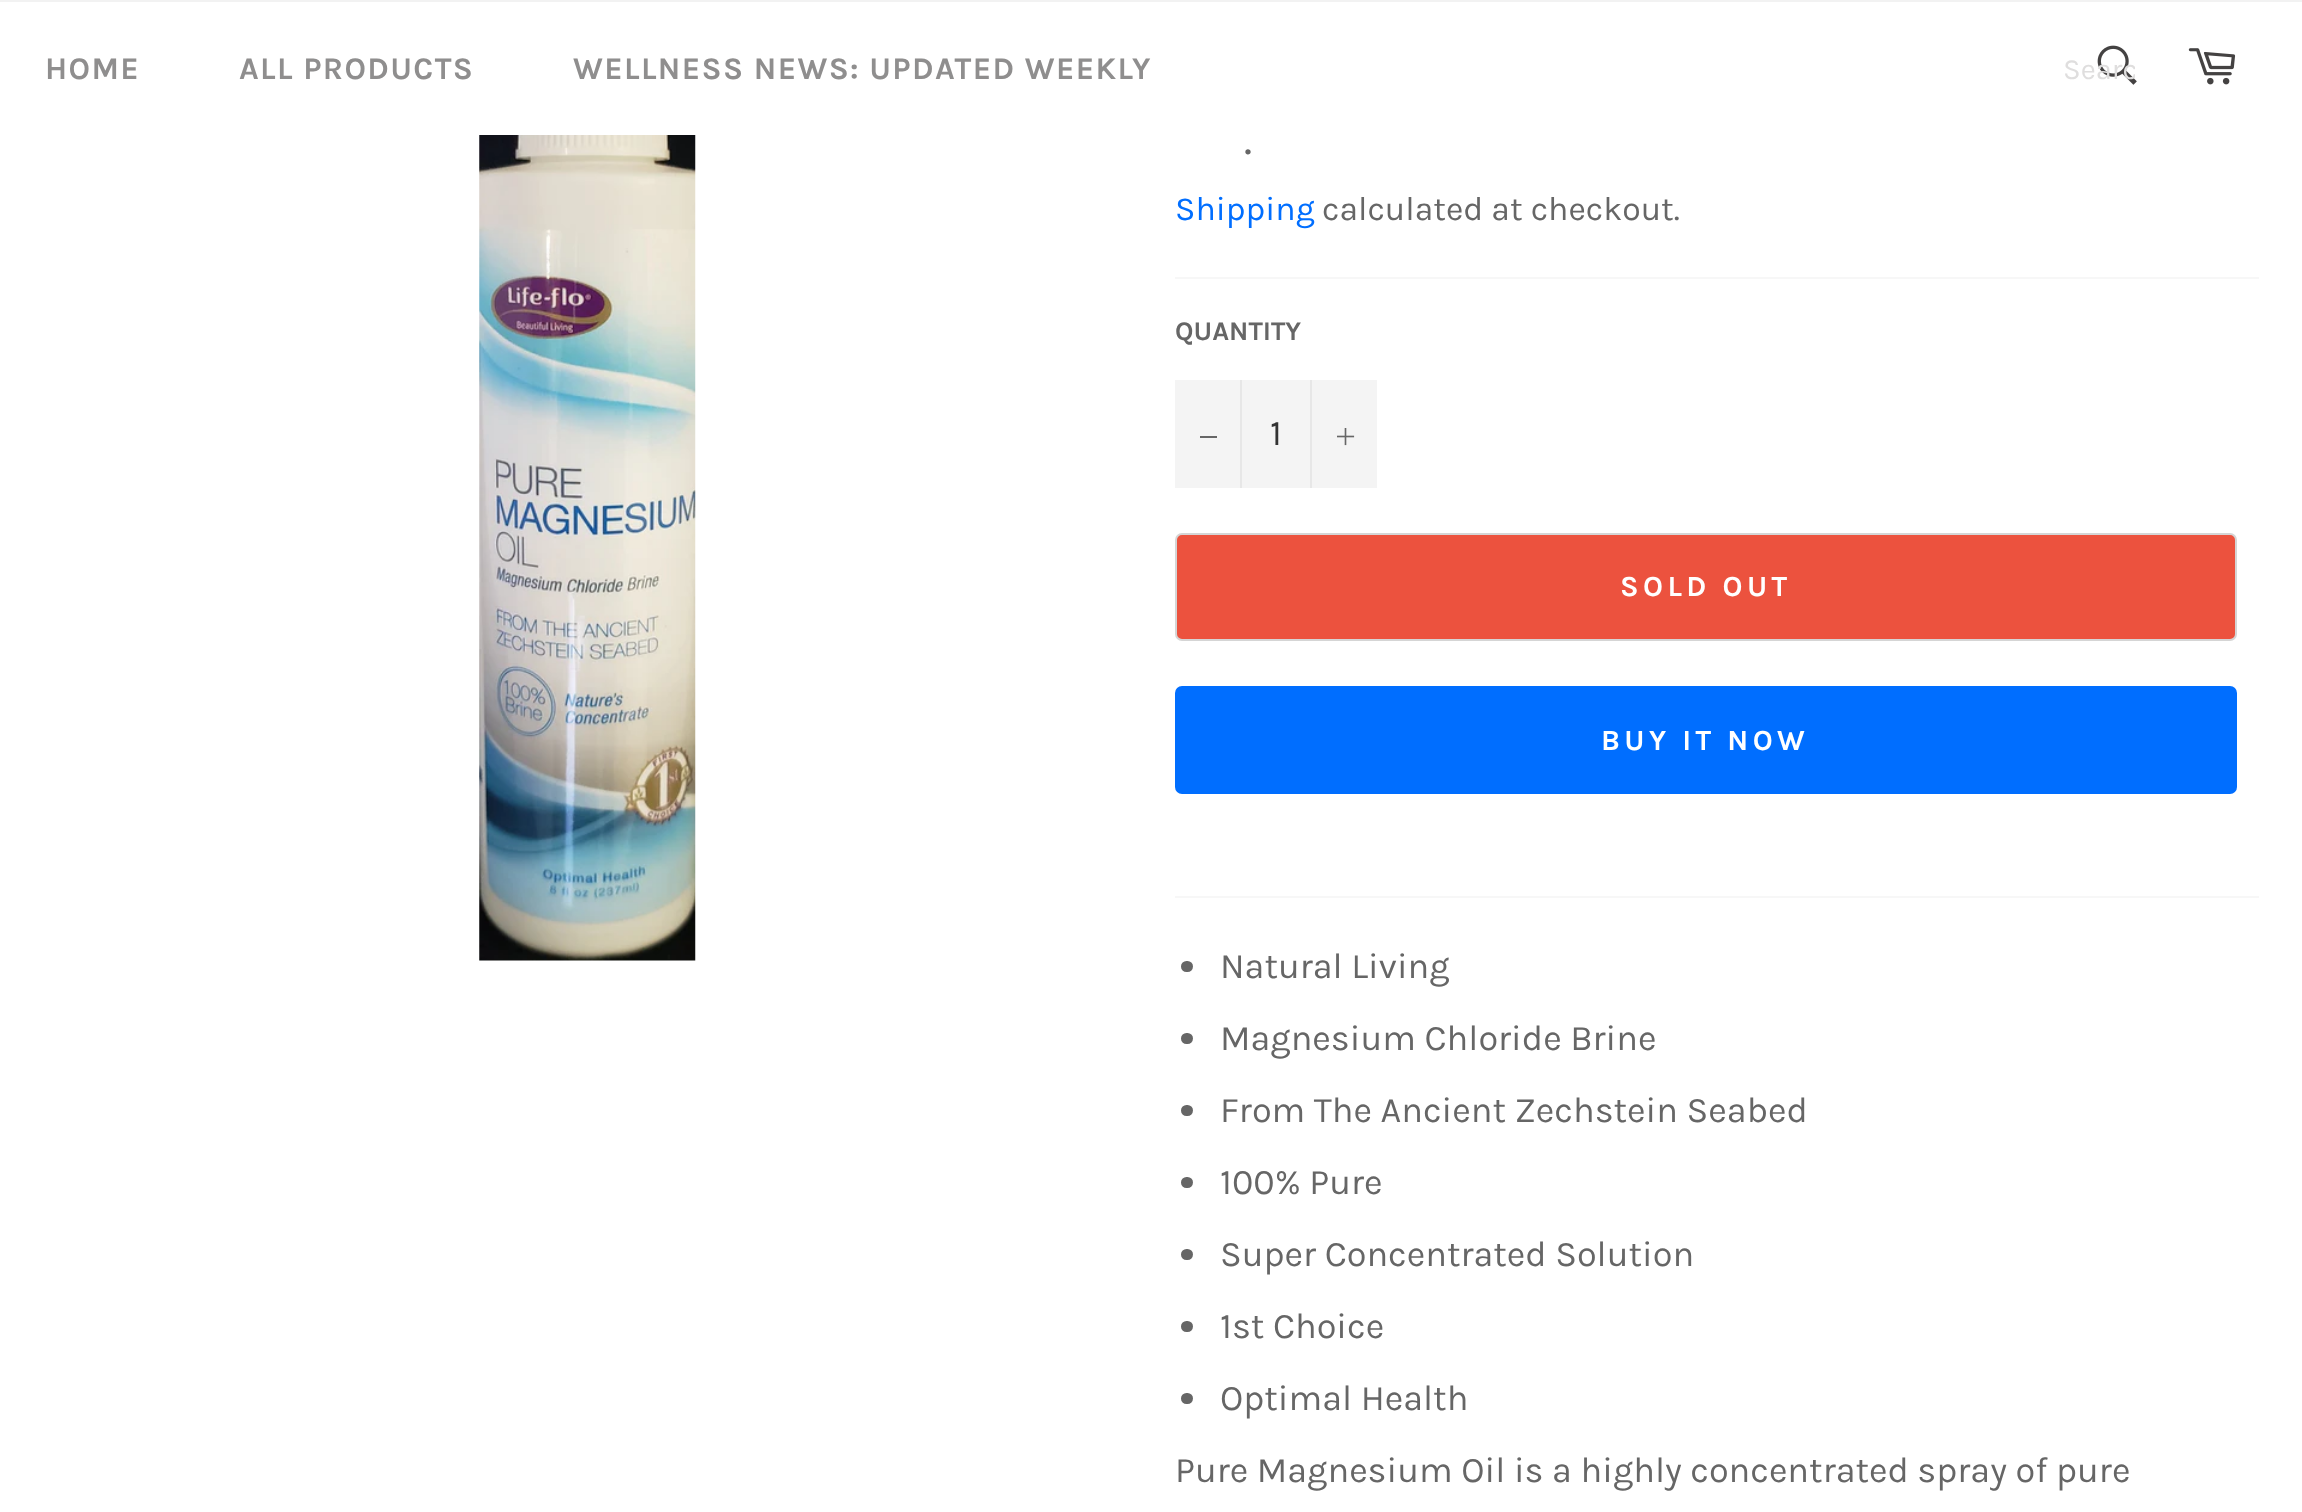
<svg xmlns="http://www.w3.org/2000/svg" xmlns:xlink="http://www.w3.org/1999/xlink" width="2302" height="1512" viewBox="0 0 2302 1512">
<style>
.cls-1{font:bold 31.5px Karla;letter-spacing:1.35px;fill:#8f8e8e}
.cls-2{font:29.25px Karla;fill:#dfdede}
.cls-3{font:45px Karla;fill:#666666}
.cls-4{font:33.75px Karla;fill:#006eff}
.cls-5{font:33.75px Karla;fill:#666666}
.cls-6{font:bold 27px Karla;fill:#666666}
.cls-7{font:36px Karla;fill:#333333}
.cls-8{font:bold 29.25px Karla;letter-spacing:4.4px;fill:#ffffff}
.cls-9{font:36px Karla;fill:#666666}
</style>
<defs>
<clipPath id="clip1"><rect x="2063" y="52" width="72" height="34"/></clipPath>
</defs>
<rect width="100%" height="100%" fill="#ffffff"/>
<rect fill="#f2f2f2" x="0" y="0" width="2302" height="2"/>
<image xlink:href="image0.png" x="2097" y="45" width="40" height="40"/>
<image xlink:href="image1.png" x="2188" y="48" width="48" height="37"/>
<image xlink:href="image2.png" x="479" y="135" width="217" height="826"/>
<rect fill="#f7f7f7" x="1175" y="277" width="1084" height="2"/>
<rect fill="#f4f4f4" x="1175" y="380" width="202" height="108"/>
<rect fill="#e7e7e7" x="1240" y="380" width="2" height="108"/>
<rect fill="#666666" x="1200" y="436" width="17" height="2"/>
<rect fill="#e7e7e7" x="1310" y="380" width="2" height="108"/>
<image xlink:href="image3.png" x="1337" y="428" width="18" height="18"/>
<rect fill="#ec523e" stroke="#d5d5d5" stroke-width="2" x="1176" y="534" width="1060" height="106" rx="6"/>
<rect fill="#006eff" x="1175" y="686" width="1062" height="108" rx="7"/>
<rect fill="#f7f7f7" x="1175" y="896" width="1084" height="2"/>
<rect fill="#666666" x="1181" y="961" width="12" height="11" rx="5.5"/>
<rect fill="#666666" x="1181" y="1033" width="12" height="11" rx="5.5"/>
<rect fill="#666666" x="1181" y="1105" width="12" height="11" rx="5.5"/>
<rect fill="#666666" x="1181" y="1177" width="12" height="11" rx="5.5"/>
<rect fill="#666666" x="1181" y="1249" width="12" height="11" rx="5.5"/>
<rect fill="#666666" x="1181" y="1321" width="12" height="11" rx="5.5"/>
<rect fill="#666666" x="1181" y="1393" width="12" height="11" rx="5.5"/>
<text class="cls-1" x="45" y="79">HOME</text>
<text class="cls-1" x="239" y="79">ALL PRODUCTS</text>
<text class="cls-1" x="573" y="79">WELLNESS NEWS: UPDATED WEEKLY</text>
<g clip-path="url(#clip1)">
<text class="cls-2" x="2063" y="79">Searc</text>
</g>
<text class="cls-3" x="1244" y="154">.</text>
<text class="cls-4" x="1175" y="220">Shipping</text>
<text class="cls-5" x="1322" y="220">calculated at checkout.</text>
<text class="cls-6" x="1175" y="340">QUANTITY</text>
<text class="cls-7" x="1270" y="445">1</text>
<text class="cls-8" x="1620" y="596">SOLD OUT</text>
<text class="cls-8" x="1601" y="750">BUY IT NOW</text>
<text class="cls-9" x="1220" y="978">Natural Living</text>
<text class="cls-9" x="1220" y="1050">Magnesium Chloride Brine</text>
<text class="cls-9" x="1220" y="1122">From The Ancient Zechstein Seabed</text>
<text class="cls-9" x="1220" y="1194">100% Pure</text>
<text class="cls-9" x="1220" y="1266">Super Concentrated Solution</text>
<text class="cls-9" x="1220" y="1338">1st Choice</text>
<text class="cls-9" x="1220" y="1410">Optimal Health</text>
<text class="cls-9" x="1175" y="1482">Pure Magnesium Oil is a highly concentrated spray of pure</text>
</svg>
